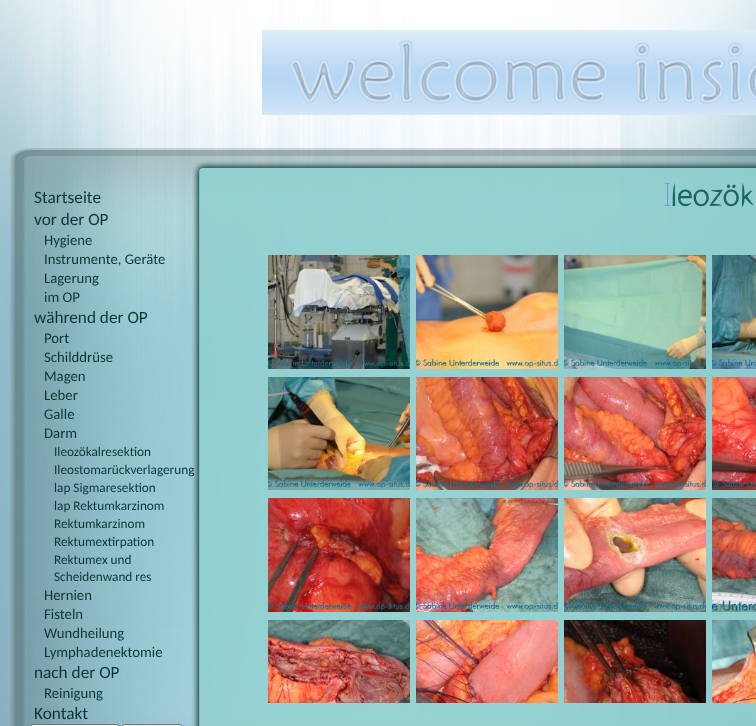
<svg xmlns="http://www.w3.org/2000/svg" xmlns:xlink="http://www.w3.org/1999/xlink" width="756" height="726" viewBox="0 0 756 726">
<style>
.cls-1{font:17.25px Carlito;fill:#0c3636}
.cls-2{font:14.75px Carlito;fill:#0c3636}
.cls-3{font:13.25px Carlito;fill:#0c3636}
.cls-4{font:100 32px Noto Sans;fill:#7288d1}
.cls-5{font:bold 32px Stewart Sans;fill:#1b6565}
</style>
<rect width="100%" height="100%" fill="#ffffff"/>
<image xlink:href="image0.png" x="0" y="0" width="756" height="726"/>
<image xlink:href="image1.png" x="262" y="30" width="494" height="85"/>
<image xlink:href="image2.png" x="10" y="148" width="746" height="578"/>
<rect fill="#ffffff" stroke="#767676" x="31.5" y="724.5" width="87" height="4" rx="1.5"/>
<rect fill="#efefef" stroke="#767676" x="122.5" y="724.5" width="59" height="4" rx="1.5"/>
<image xlink:href="image3.png" x="268" y="255" width="142" height="114"/>
<image xlink:href="image4.png" x="416" y="255" width="142" height="114"/>
<image xlink:href="image5.png" x="564" y="255" width="142" height="114"/>
<image xlink:href="image6.png" x="712" y="255" width="44" height="114"/>
<image xlink:href="image7.png" x="268" y="377" width="142" height="113"/>
<image xlink:href="image8.png" x="416" y="377" width="142" height="113"/>
<image xlink:href="image9.png" x="564" y="377" width="142" height="113"/>
<image xlink:href="image10.png" x="712" y="377" width="44" height="113"/>
<image xlink:href="image11.png" x="268" y="498" width="142" height="114"/>
<image xlink:href="image12.png" x="416" y="498" width="142" height="114"/>
<image xlink:href="image13.png" x="564" y="498" width="142" height="114"/>
<image xlink:href="image14.png" x="712" y="498" width="44" height="114"/>
<image xlink:href="image15.png" x="268" y="620" width="142" height="83"/>
<image xlink:href="image16.png" x="416" y="620" width="142" height="83"/>
<image xlink:href="image17.png" x="564" y="620" width="142" height="83"/>
<image xlink:href="image18.png" x="712" y="620" width="44" height="83"/>
<text class="cls-1"><tspan x="34" y="203">Startseite</tspan><tspan x="34" y="225">vor der OP</tspan></text>
<text class="cls-2"><tspan x="44" y="245">Hygiene</tspan><tspan x="44" y="264">Instrumente, Geräte</tspan><tspan x="44" y="283">Lagerung</tspan><tspan x="44" y="302">im OP</tspan></text>
<text class="cls-1" x="34" y="323">während der OP</text>
<text class="cls-2"><tspan x="44" y="343">Port</tspan><tspan x="44" y="362">Schilddrüse</tspan><tspan x="44" y="381">Magen</tspan><tspan x="44" y="400">Leber</tspan><tspan x="44" y="419">Galle</tspan><tspan x="44" y="438">Darm</tspan></text>
<text class="cls-3"><tspan x="54" y="456">Ileozökalresektion</tspan><tspan x="54" y="474">Ileostomarückverlagerung</tspan><tspan x="54" y="492">lap Sigmaresektion</tspan><tspan x="54" y="510">lap Rektumkarzinom</tspan><tspan x="54" y="528">Rektumkarzinom</tspan><tspan x="54" y="546">Rektumextirpation</tspan><tspan x="54" y="564">Rektumex und</tspan><tspan x="54" y="581">Scheidenwand res</tspan></text>
<text class="cls-2"><tspan x="44" y="600">Hernien</tspan><tspan x="44" y="619">Fisteln</tspan><tspan x="44" y="638">Wundheilung</tspan><tspan x="44" y="657">Lymphadenektomie</tspan></text>
<text class="cls-1" x="34" y="678">nach der OP</text>
<text class="cls-2" x="44" y="698">Reinigung</text>
<text class="cls-1" x="34" y="719">Kontakt</text>
<text class="cls-4" x="663" y="206">I</text>
<text class="cls-5" x="670" y="206">leozök</text>
</svg>
